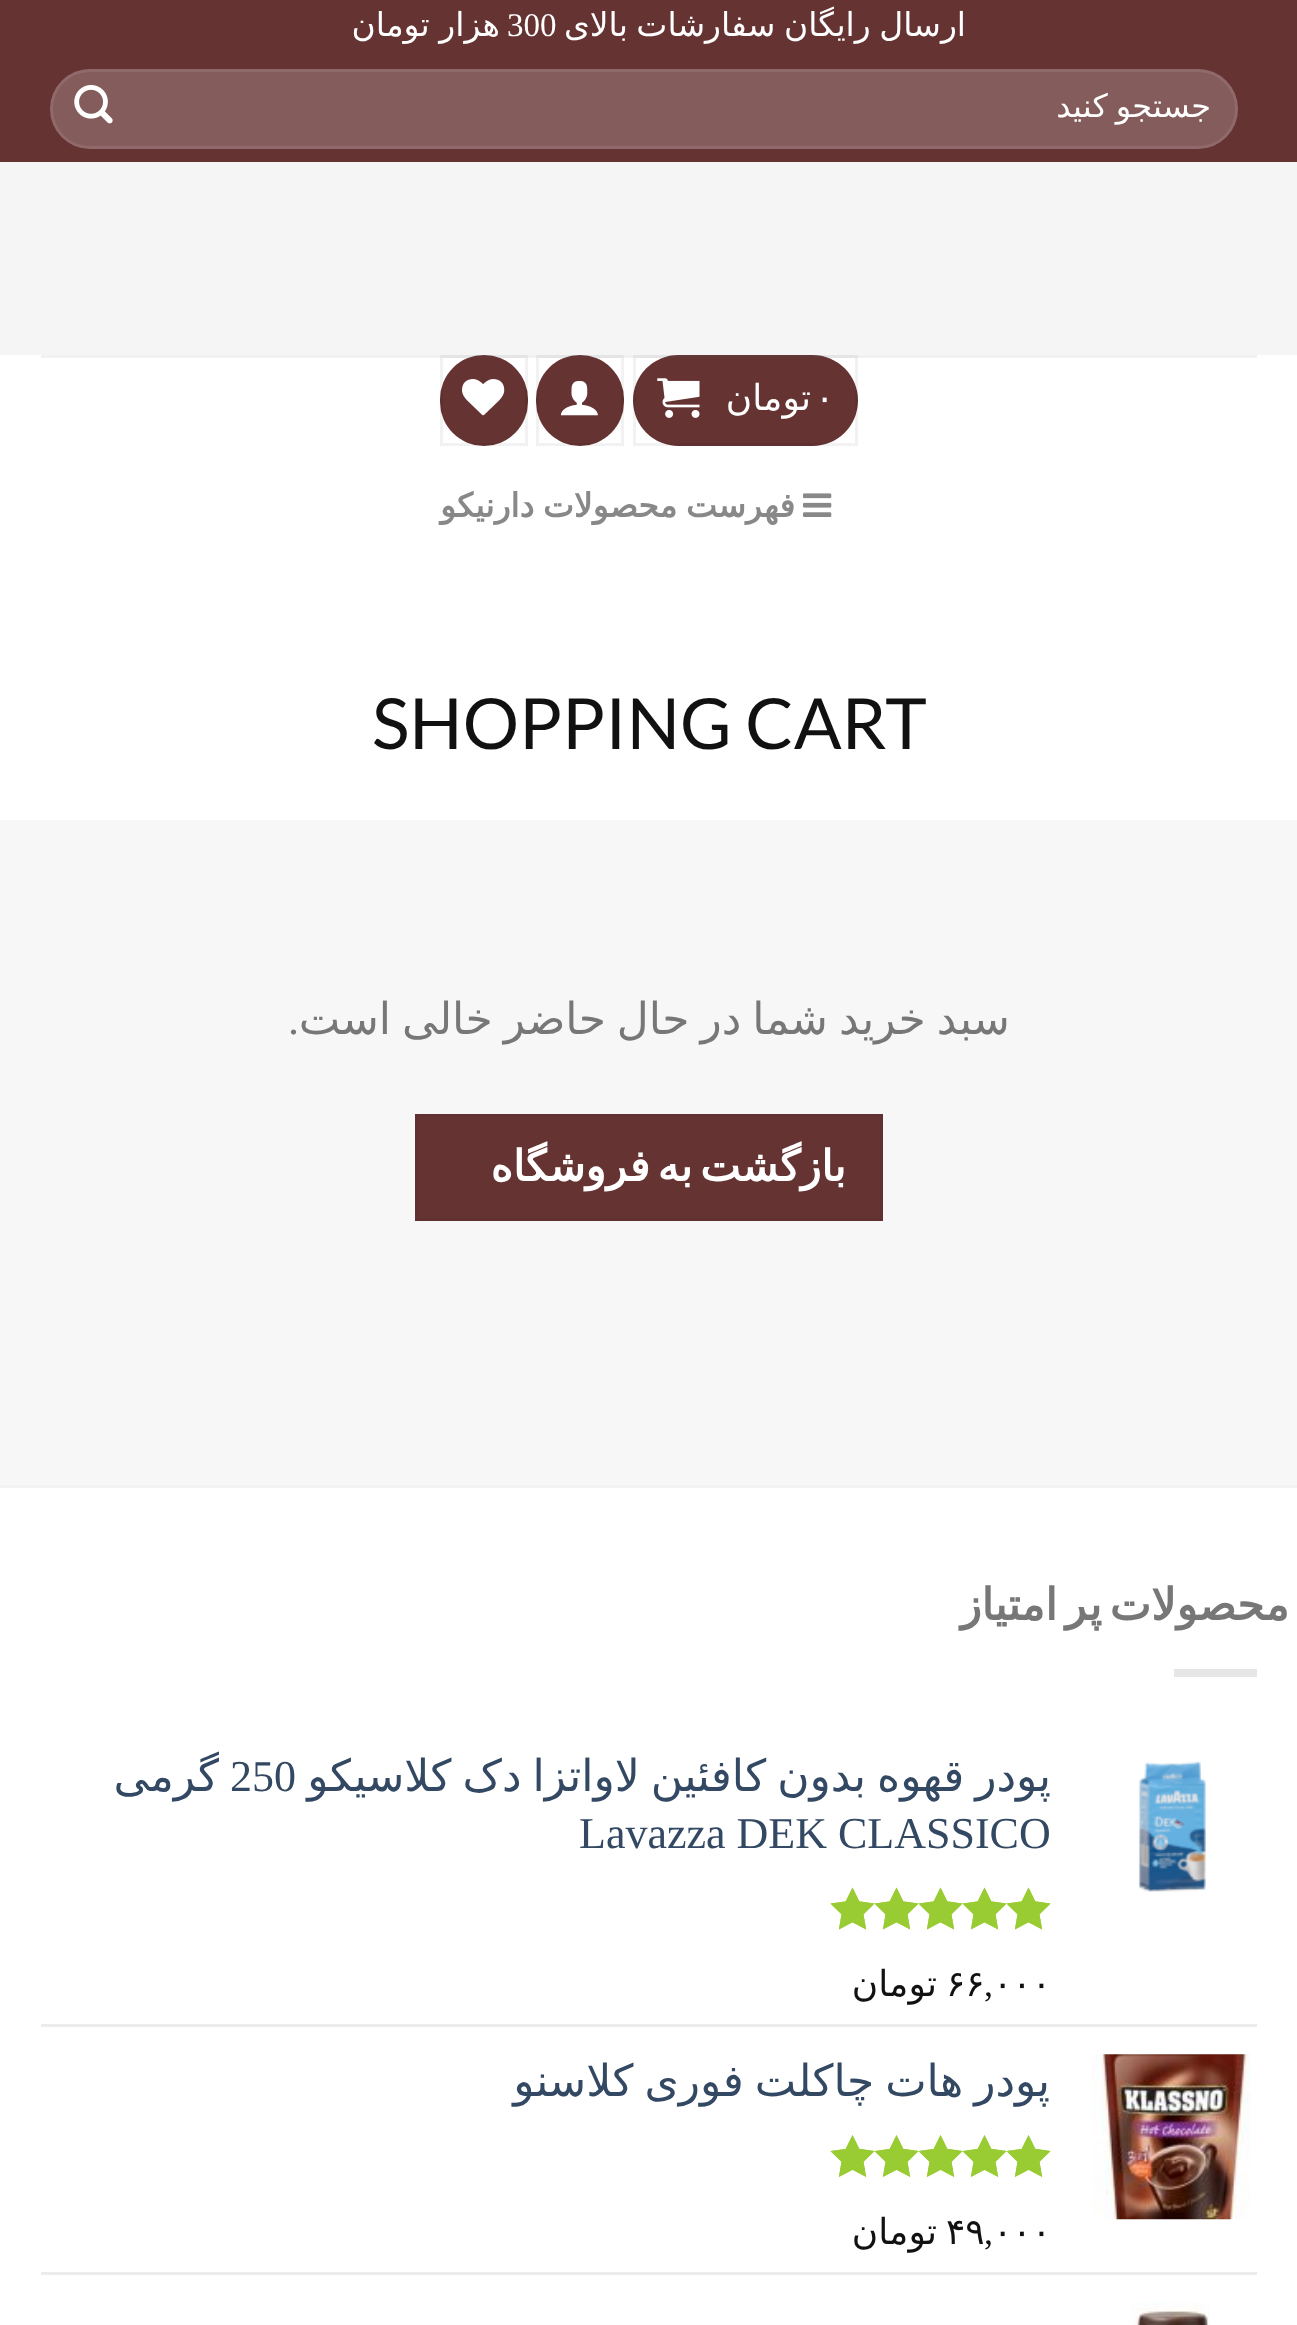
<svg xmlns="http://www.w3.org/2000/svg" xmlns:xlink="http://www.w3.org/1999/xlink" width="1297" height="2325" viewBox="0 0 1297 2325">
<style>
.cls-1{font:33px DejaVu Sans;direction:rtl;fill:#ffffff}
.cls-2{font:33px Liberation Serif;fill:#ffffff}
.cls-3{font:32px DejaVu Sans;direction:rtl;fill:#ffffff}
.cls-4{font:36px DejaVu Sans;letter-spacing:1px;fill:#ffffff}
.cls-5{font:36px DejaVu Sans;letter-spacing:1px;direction:rtl;fill:#ffffff}
.cls-6{font:bold 33px DejaVu Sans;direction:rtl;fill:#888888}
.cls-7{font:70.5px Lato;fill:#111111}
.cls-8{font:44px DejaVu Sans;direction:rtl;fill:#777777}
.cls-9{font:44px Liberation Serif;direction:rtl;fill:#777777}
.cls-10{font:bold 42.75px DejaVu Sans;letter-spacing:1.25px;direction:rtl;fill:#ffffff}
.cls-11{font:bold 44px DejaVu Sans;letter-spacing:2.25px;direction:rtl;fill:#777777}
.cls-12{font:44px DejaVu Sans;direction:rtl;fill:#334862}
.cls-13{font:44px Liberation Serif;fill:#334862}
.cls-14{font:36px DejaVu Sans;fill:#111111}
.cls-15{font:36px DejaVu Sans;direction:rtl;fill:#111111}
.cls-16{font:36px Liberation Serif;fill:#111111}
</style>
<defs>
<clipPath id="clip1"><rect x="88" y="88" width="1122" height="39"/></clipPath>
<clipPath id="clip2"><rect x="41" y="1749" width="1010" height="116"/></clipPath>
<clipPath id="clip3"><rect x="41" y="2054" width="1010" height="58"/></clipPath>
</defs>
<rect width="100%" height="100%" fill="#ffffff"/>
<rect fill="#f5f5f5" x="0" y="162" width="1297" height="193"/>
<rect fill="#663333" x="0" y="0" width="1297" height="162"/>
<rect fill="#855c5c" x="50" y="69" width="1188" height="80" rx="40"/>
<rect fill="none" stroke="#ffffff" stroke-opacity="0.09" stroke-width="3" x="51.5" y="70.5" width="1185" height="77" rx="38.5"/>
<image xlink:href="image0.png" x="74" y="85" width="39" height="39"/>
<rect fill="#663333" x="633" y="355" width="225" height="91" rx="45.5"/>
<rect fill="none" stroke="#000000" stroke-opacity="0.05" stroke-width="3" x="634.5" y="356.5" width="222" height="88"/>
<rect fill="#663333" x="536" y="355" width="88" height="91" rx="44"/>
<rect fill="none" stroke="#000000" stroke-opacity="0.05" stroke-width="3" x="537.5" y="356.5" width="85" height="88"/>
<rect fill="#663333" x="440" y="355" width="88" height="91" rx="44"/>
<rect fill="none" stroke="#000000" stroke-opacity="0.05" stroke-width="3" x="441.5" y="356.5" width="85" height="88"/>
<rect fill="#777777" fill-opacity="0.1" x="41" y="355" width="1216" height="3"/>
<image xlink:href="image1.png" x="657" y="378" width="43" height="40"/>
<image xlink:href="image2.png" x="560" y="380" width="38" height="36"/>
<image xlink:href="image3.png" x="462" y="379" width="43" height="37"/>
<image xlink:href="image4.png" x="803" y="493" width="29" height="24"/>
<rect fill="#f7f7f7" x="0" y="820" width="1297" height="665"/>
<rect fill="#663333" stroke="#613030" stroke-width="3" x="416.5" y="1115.5" width="465" height="104"/>
<rect fill="#f2f2f2" x="0" y="1485" width="1297" height="3"/>
<rect fill="#e6e6e6" x="1174" y="1669" width="83" height="8"/>
<image xlink:href="image5.png" x="1138" y="1761" width="68" height="131"/>
<image xlink:href="image6.png" x="830" y="1887" width="221" height="43"/>
<image xlink:href="image7.png" x="830" y="1887" width="221" height="43"/>
<rect fill="#ececec" x="41" y="2024" width="1216" height="3"/>
<image xlink:href="image8.png" x="1092" y="2054" width="159" height="166"/>
<image xlink:href="image9.png" x="830" y="2135" width="221" height="42"/>
<image xlink:href="image10.png" x="830" y="2135" width="221" height="42"/>
<rect fill="#ececec" x="41" y="2272" width="1216" height="3"/>
<image xlink:href="image11.png" x="1132" y="2302" width="78" height="23"/>
<text class="cls-1" x="966" y="36" word-spacing="-2">ارسال رایگان سفارشات بالای</text>
<text class="cls-2" x="507" y="36">300</text>
<text class="cls-1" x="500" y="36" word-spacing="-1">هزار تومان</text>
<g clip-path="url(#clip1)">
<text class="cls-3" x="1211" y="117" word-spacing="-2">جستجو کنید</text>
</g>
<text class="cls-4" x="815" y="410">۰</text>
<text class="cls-5" x="811" y="410">تومان</text>
<text class="cls-6" x="795" y="517" word-spacing="-2">فهرست محصولات دارنیکو</text>
<text class="cls-7" x="372" y="749">SHOPPING CART</text>
<text class="cls-8" x="1010" y="1034" word-spacing="-3">سبد خرید شما در حال حاضر خالی است</text>
<text class="cls-9" x="299" y="1034">.</text>
<text class="cls-10" x="846" y="1181" word-spacing="-6">بازگشت به فروشگاه</text>
<text class="cls-11" x="1289" y="1620" word-spacing="-6">محصولات پر امتیاز</text>
<g clip-path="url(#clip2)">
<text class="cls-12" x="1051" y="1791" word-spacing="-3">پودر قهوه بدون کافئین لاواتزا دک کلاسیکو</text>
</g>
<text class="cls-13" x="230" y="1791">250</text>
<text class="cls-12" x="219" y="1791">گرمی</text>
<text class="cls-13" x="579" y="1848">Lavazza DEK CLASSICO</text>
<text class="cls-14" x="993" y="1996">۰۰۰</text>
<text class="cls-14" x="946" y="1996">۶۶</text>
<text class="cls-15" x="937" y="1996">تومان</text>
<text class="cls-16" x="984" y="1996">,</text>
<g clip-path="url(#clip3)">
<text class="cls-12" x="1050" y="2096" word-spacing="-3">پودر هات چاکلت فوری کلاسنو</text>
</g>
<text class="cls-14" x="993" y="2244">۰۰۰</text>
<text class="cls-14" x="946" y="2244">۴۹</text>
<text class="cls-15" x="937" y="2244">تومان</text>
<text class="cls-16" x="984" y="2244">,</text>
</svg>
